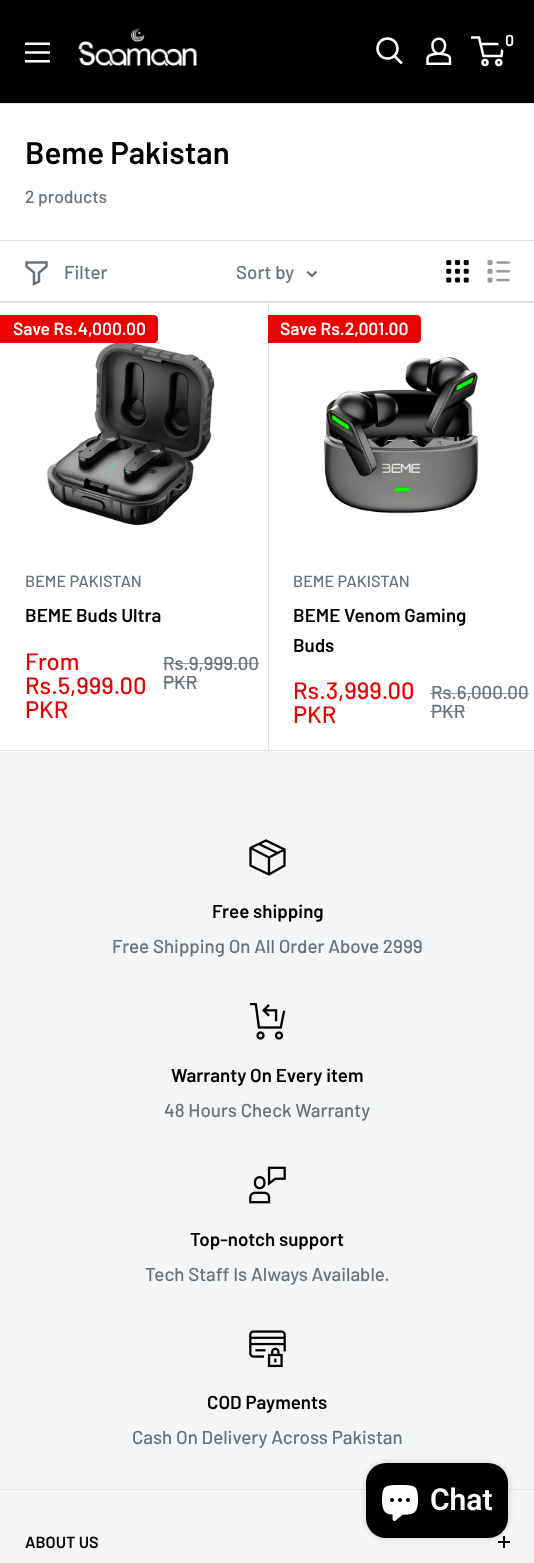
<svg xmlns="http://www.w3.org/2000/svg" xmlns:xlink="http://www.w3.org/1999/xlink" width="534" height="1563" viewBox="0 0 534 1563">
<style>
.cls-1{font:600 16px Barlow;fill:#ffffff}
.cls-2{font:600 31.25px Barlow;fill:#000000}
.cls-3{font:500 17.5px Barlow;fill:#677279}
.cls-4{font:500 18.75px Barlow;fill:#677279}
.cls-5{font:600 17.5px Barlow;fill:#ffffff}
.cls-6{font:500 16.25px Barlow;fill:#677279}
.cls-7{font:600 18.75px Barlow;fill:#000000}
.cls-8{font:500 23.75px Barlow;fill:#ee0000}
.cls-9{font:600 30px Roboto;fill:#ffffff}
.cls-10{font:600 16.25px Barlow;fill:#000000}
</style>
<rect width="100%" height="100%" fill="#f3f5f6"/>
<rect fill="#000000" x="0" y="0" width="534" height="103"/>
<image xlink:href="image0.png" x="78" y="28" width="119" height="38"/>
<path fill="none" stroke="#ffffff" stroke-width="2.6" stroke-linecap="square" d="M401 62.5L394.5 56"/>
<circle fill="none" stroke="#ffffff" stroke-width="2.6" cx="387.5" cy="48.5" r="10"/>
<image xlink:href="image1.png" x="426" y="37" width="26" height="28"/>
<circle fill="none" stroke="#ffffff" stroke-width="2.5" cx="485" cy="62.5" r="2.5"/>
<circle fill="none" stroke="#ffffff" stroke-width="2.5" cx="498.8" cy="62.5" r="2.5"/>
<path fill="none" stroke="#ffffff" stroke-width="2.5" d="M480.5 44H503L501.5 56H483.5L479 37.5H471"/>
<circle fill="#000000" cx="510.5" cy="40.5" r="12.5"/>
<image xlink:href="image2.png" x="25" y="42" width="25" height="21"/>
<rect fill="#ffffff" x="0" y="104" width="534" height="646"/>
<rect fill="#e1e3e4" x="0" y="103" width="534" height="1"/>
<rect fill="#e1e3e4" x="0" y="750" width="534" height="1"/>
<rect fill="#e1e3e4" x="0" y="240" width="534" height="1"/>
<path fill="#e1e3e4" d="M1 301H268V750H269V301Z"/>
<rect fill="#e1e3e4" x="0" y="301" width="534" height="2"/>
<path fill="none" stroke="#677279" stroke-width="2.5" stroke-linecap="square" d="M46.5 266.5L39 272.5V281.5L34 284V272.5L26.5 266.5V262.5H46.5Z"/>
<path fill="none" stroke="#677279" stroke-width="2.3" stroke-linecap="square" d="M315.5 272.5L312 276L308 272.5"/>
<image xlink:href="image3.png" x="446" y="260" width="23" height="23"/>
<image xlink:href="image4.png" x="487" y="260" width="23" height="23"/>
<image xlink:href="image5.png" x="46" y="340" width="169" height="185"/>
<path fill="#ee0000" d="M0 315H154C156 315 158 317 158 319V339C158 341 156 343 154 343H0Z"/>
<path fill="#ee0000" d="M268 315H417C419 315 421 317 421 319V339C421 341 419 343 417 343H268Z"/>
<image xlink:href="image6.png" x="323" y="357" width="156" height="157"/>
<path fill="none" stroke="#000000" stroke-width="2.3" d="M259 844L277.5 853M284.5 849.5L269 857.5L250.5 848M269 857.5V874.5"/>
<path fill="none" stroke="#000000" stroke-width="2.3" stroke-linecap="square" d="M284.5 849.5V865.5L269 874.5L250.5 865.5V848L266 840.5Z"/>
<image xlink:href="image7.png" x="249" y="1003" width="37" height="37"/>
<image xlink:href="image8.png" x="249" y="1166" width="37" height="38"/>
<image xlink:href="image9.png" x="249" y="1330" width="37" height="38"/>
<rect fill="#e1e3e4" x="0" y="1489" width="534" height="1"/>
<rect fill="#000000" x="503" y="1536" width="2" height="12"/>
<rect fill="#000000" x="498" y="1541" width="12" height="2"/>
<rect fill="#000000" fill-opacity="0.15" filter="blur(3px)" x="366" y="1463" width="142" height="75" rx="20"/>
<rect fill="#000000" x="366" y="1463" width="142" height="75" rx="20"/>
<image xlink:href="image10.png" x="382" y="1485" width="36" height="36"/>
<text class="cls-1" x="505" y="46">0</text>
<text class="cls-2" x="25" y="164">Beme Pakistan</text>
<text class="cls-3" x="25" y="203">2 products</text>
<text class="cls-4" x="64" y="279">Filter</text>
<text class="cls-4" x="236" y="279">Sort by</text>
<text class="cls-5" x="13" y="335">Save Rs.4,000.00</text>
<text class="cls-6" x="25" y="587">BEME PAKISTAN</text>
<text class="cls-7" x="25" y="622">BEME Buds Ultra</text>
<text class="cls-8"><tspan x="25" y="670">From</tspan><tspan x="25" y="694">Rs.5,999.00</tspan><tspan x="25" y="718">PKR</tspan></text>
<text class="cls-4" x="163" y="670">Rs.9,999.00</text>
<rect fill="#677279" fill-opacity="0.7" x="163" y="663" width="96" height="1"/>
<text class="cls-4" x="163" y="689">PKR</text>
<rect fill="#677279" fill-opacity="0.7" x="163" y="681" width="35" height="1"/>
<text class="cls-5" x="280" y="335">Save Rs.2,001.00</text>
<text class="cls-6" x="293" y="587">BEME PAKISTAN</text>
<text class="cls-7"><tspan x="293" y="622">BEME Venom Gaming</tspan><tspan x="293" y="652">Buds</tspan></text>
<text class="cls-8"><tspan x="293" y="699">Rs.3,999.00</tspan><tspan x="293" y="723">PKR</tspan></text>
<text class="cls-4" x="431" y="699">Rs.6,000.00</text>
<rect fill="#677279" fill-opacity="0.7" x="430" y="693" width="99" height="1"/>
<text class="cls-4" x="431" y="718">PKR</text>
<rect fill="#677279" fill-opacity="0.7" x="430" y="711" width="35" height="1"/>
<text class="cls-7" x="212" y="918">Free shipping</text>
<text class="cls-4" x="112" y="953">Free Shipping On All Order Above 2999</text>
<text class="cls-7" x="171" y="1082">Warranty On Every item</text>
<text class="cls-4" x="164" y="1117">48 Hours Check Warranty</text>
<text class="cls-7" x="190" y="1246">Top-notch support</text>
<text class="cls-4" x="145" y="1281">Tech Staff Is Always Available.</text>
<text class="cls-7" x="207" y="1409">COD Payments</text>
<text class="cls-4" x="132" y="1444">Cash On Delivery Across Pakistan</text>
<text class="cls-9" x="430" y="1510">Chat</text>
<text class="cls-10" x="25" y="1548">ABOUT US</text>
</svg>
